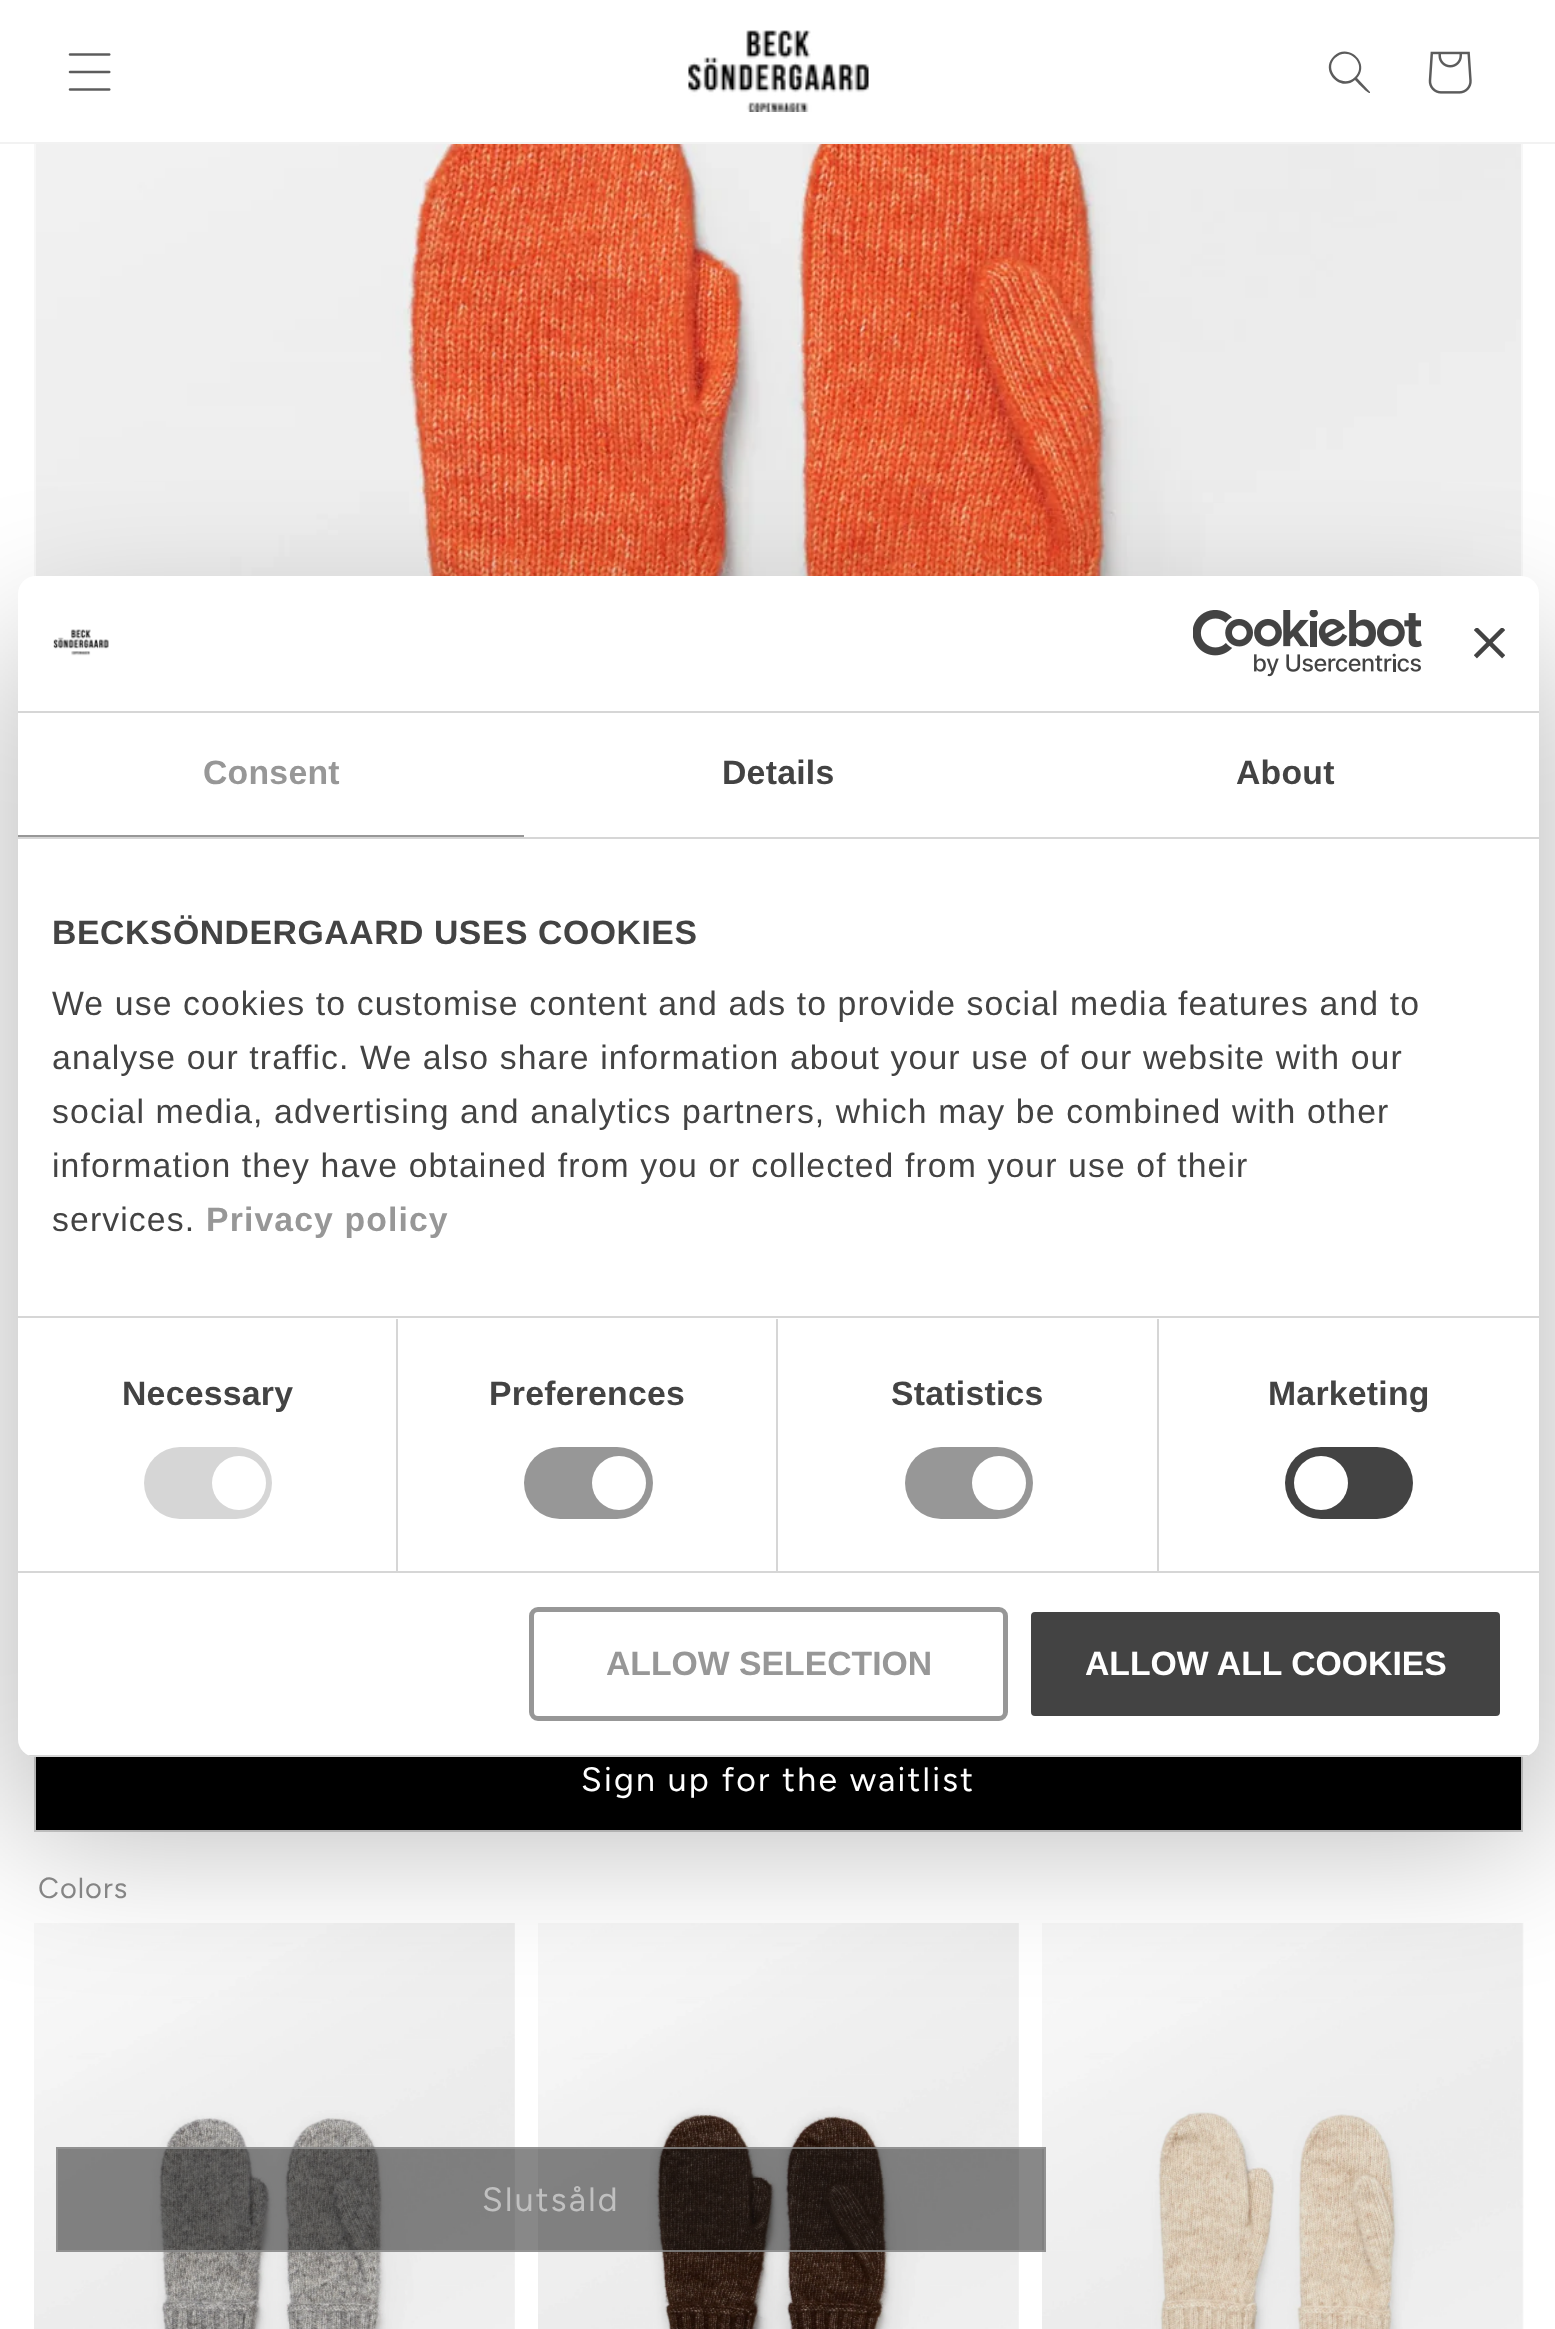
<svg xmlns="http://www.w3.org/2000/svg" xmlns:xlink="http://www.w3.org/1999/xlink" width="1555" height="2329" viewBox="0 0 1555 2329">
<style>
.cls-1{font:bold 33.75px Liberation Sans;letter-spacing:0.25px;fill:#979797}
.cls-2{font:bold 33.75px Liberation Sans;letter-spacing:0.25px;fill:#434343}
.cls-3{font:bold 33.75px Liberation Sans;letter-spacing:0.55px;fill:#434343}
.cls-4{font:33.75px Liberation Sans;letter-spacing:1.12px;fill:#434343}
.cls-5{font:bold 33.75px Liberation Sans;letter-spacing:1.12px;fill:#979797}
.cls-6{font:bold 33.75px Liberation Sans;fill:#979797}
.cls-7{font:bold 33.75px Liberation Sans;fill:#ffffff}
.cls-8{font:33.75px Figtree;letter-spacing:2.25px;fill:#ffffff}
.cls-9{font:29px Figtree;letter-spacing:1px;fill:#858585}
.cls-10{font:33.75px Figtree;letter-spacing:2.25px;fill:#c0c0c0}
</style>
<defs>
<clipPath id="clip1"><rect x="18" y="576" width="1521" height="1181" rx="18"/></clipPath>
</defs>
<rect width="100%" height="100%" fill="#ffffff"/>
<rect fill="none" stroke="#f7f7f7" stroke-width="2" x="35" y="-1" width="1487" height="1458"/>
<rect fill="#ffffff" x="34" y="0" width="1489" height="142"/>
<rect fill="#f2f2f2" x="0" y="142" width="1555" height="2"/>
<image xlink:href="image0.png" x="68" y="53" width="43" height="38"/>
<image xlink:href="image1.png" x="688" y="30" width="181" height="82"/>
<path fill="#5c5c5c" fill-rule="evenodd" d="M1355 77C1342 90 1323 70 1335 58C1348 45 1368 64 1355 77ZM1355 80C1340 93 1319 70 1334 56C1348 42 1371 63 1357 78L1370 92V93C1368 94 1357 82 1355 80Z"/>
<image xlink:href="image2.png" x="1428" y="51" width="44" height="43"/>
<image xlink:href="image6.png" x="36" y="144" width="1485" height="432"/>
<rect fill="#000000" x="36" y="1757" width="1485" height="73"/>
<rect fill="none" stroke="#d0d0d0" stroke-width="2" x="35" y="1727" width="1487" height="104"/>
<image xlink:href="image7.png" x="34" y="1923" width="481" height="406"/>
<image xlink:href="image8.png" x="538" y="1923" width="481" height="406"/>
<image xlink:href="image9.png" x="1042" y="1923" width="482" height="406"/>
<rect fill="#000000" fill-opacity="0.3" filter="blur(76.5px)" x="18" y="648" width="1521" height="1181" rx="18"/>
<rect fill="#ffffff" x="18" y="576" width="1521" height="1181" rx="18"/>
<rect fill="#d6d6d6" x="18" y="711" width="1521" height="2"/>
<image xlink:href="image3.png" x="53" y="629" width="56" height="27"/>
<image xlink:href="image4.png" x="1193" y="610" width="229" height="67"/>
<image xlink:href="image5.png" x="1474" y="628" width="31" height="31"/>
<rect fill="#d6d6d6" x="18" y="837" width="1521" height="2"/>
<rect fill="#979797" x="18" y="835" width="506" height="2"/>
<rect fill="#d6d6d6" x="18" y="1316" width="1521" height="2"/>
<rect fill="#d6d6d6" x="18" y="1571" width="1521" height="2"/>
<rect fill="#d6d6d6" x="396" y="1319" width="2" height="252"/>
<rect fill="#d6d6d6" x="144" y="1447" width="128" height="72" rx="36"/>
<circle fill="#ffffff" cx="239" cy="1483" r="27"/>
<rect fill="#d6d6d6" x="776" y="1319" width="2" height="252"/>
<rect fill="#979797" x="524" y="1447" width="129" height="72" rx="36"/>
<circle fill="#ffffff" cx="619" cy="1483" r="27"/>
<rect fill="#d6d6d6" x="1157" y="1319" width="2" height="252"/>
<rect fill="#979797" x="905" y="1447" width="128" height="72" rx="36"/>
<circle fill="#ffffff" cx="999" cy="1483" r="27"/>
<rect fill="#434343" x="1285" y="1447" width="128" height="72" rx="36"/>
<circle fill="#ffffff" cx="1321" cy="1483" r="27"/>
<g clip-path="url(#clip1)">
<rect fill="#d6d6d6" x="28" y="1755" width="1501" height="2"/>
</g>
<rect fill="none" stroke="#979797" stroke-width="5" x="531.5" y="1609.5" width="474" height="109" rx="6.5"/>
<rect fill="#434343" stroke="#ffffff" stroke-width="5" x="1028.5" y="1609.5" width="474" height="109" rx="6.5"/>
<rect fill="#121212" fill-opacity="0.5" x="56" y="2147" width="990" height="105"/>
<rect fill="none" stroke="#121212" stroke-opacity="0.5" stroke-width="2" x="57" y="2148" width="988" height="103"/>
<rect fill="none" stroke="#ffffff" stroke-opacity="0.4" stroke-width="2" x="57" y="2148" width="988" height="103"/>
<text class="cls-1" x="203" y="784">Consent</text>
<text class="cls-2" x="722" y="784">Details</text>
<text class="cls-2" x="1236" y="784">About</text>
<text class="cls-3" x="52" y="944">BECKSÖNDERGAARD USES COOKIES</text>
<text class="cls-4"><tspan x="52" y="1015">We use cookies to customise content and ads to provide social media features and to</tspan><tspan x="52" y="1069">analyse our traffic. We also share information about your use of our website with our</tspan><tspan x="52" y="1123">social media, advertising and analytics partners, which may be combined with other</tspan><tspan x="52" y="1177">information they have obtained from you or collected from your use of their</tspan><tspan x="52" y="1231">services.</tspan></text>
<text class="cls-5" x="206" y="1231">Privacy policy</text>
<text class="cls-2" x="122" y="1405">Necessary</text>
<text class="cls-2" x="489" y="1405">Preferences</text>
<text class="cls-2" x="891" y="1405">Statistics</text>
<text class="cls-2" x="1268" y="1405">Marketing</text>
<text class="cls-6" x="606" y="1675">ALLOW SELECTION</text>
<text class="cls-7" x="1085" y="1675">ALLOW ALL COOKIES</text>
<text class="cls-8" x="581" y="1791">Sign up for the waitlist</text>
<text class="cls-9" x="38" y="1898">Colors</text>
<text class="cls-10" x="482" y="2211">Slutsåld</text>
</svg>
